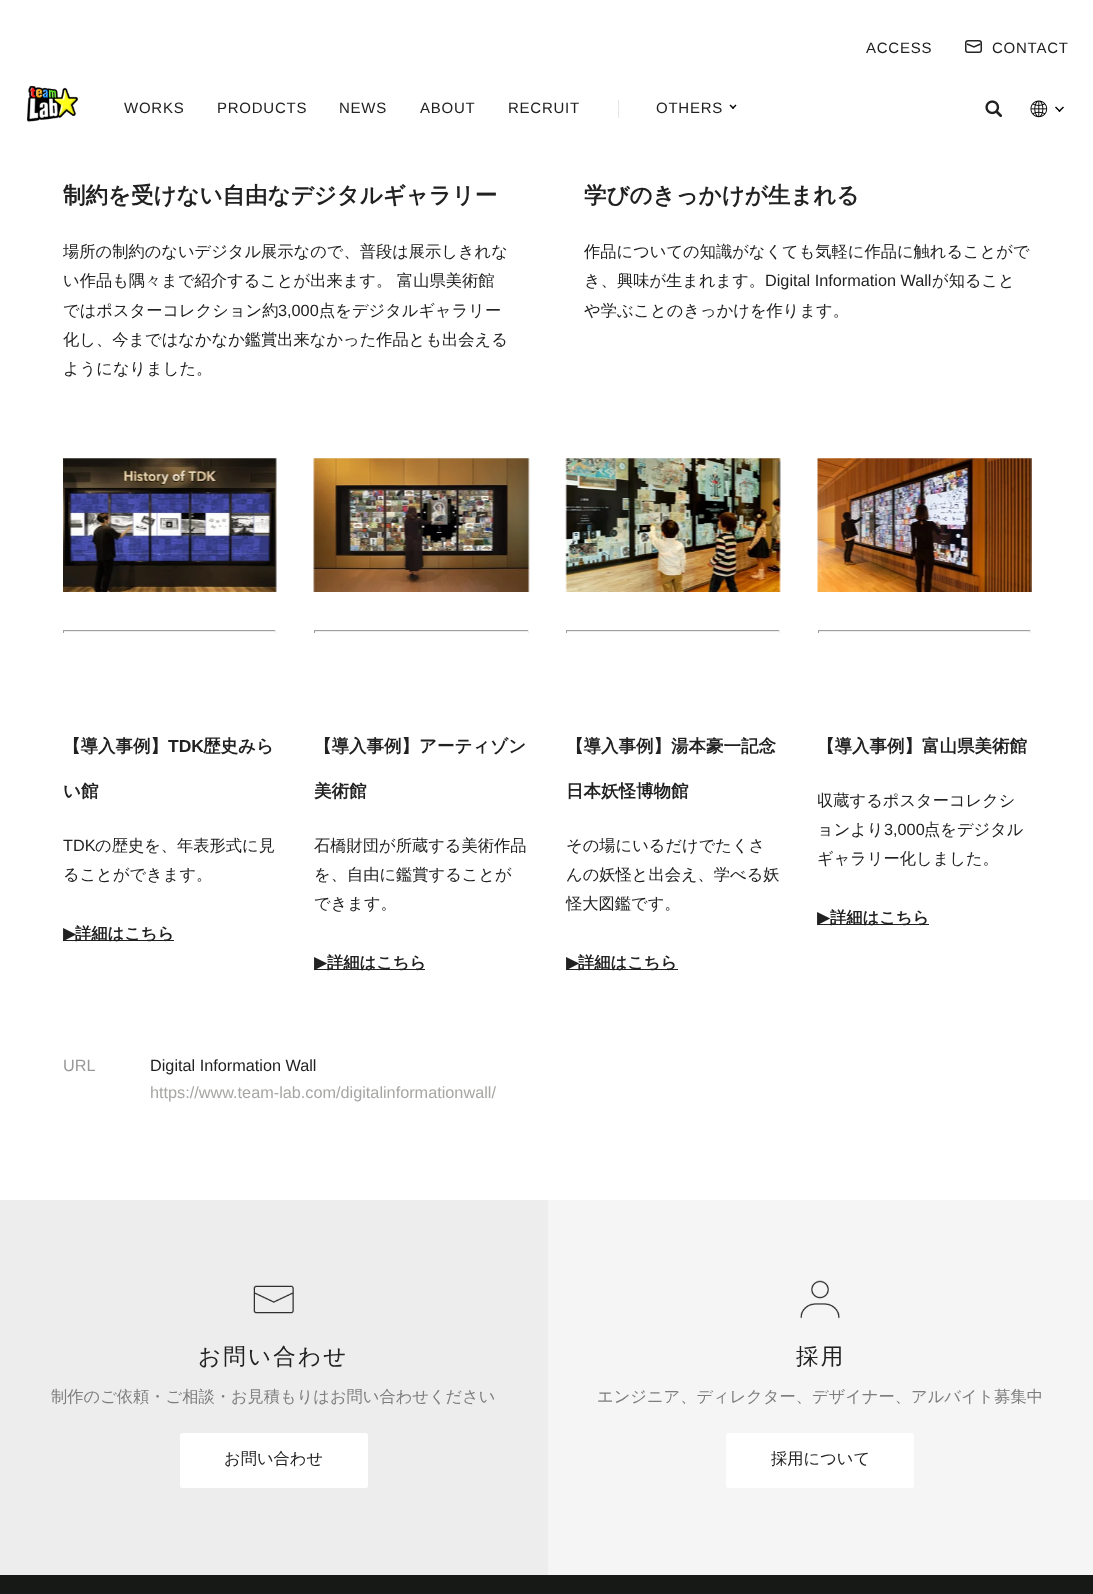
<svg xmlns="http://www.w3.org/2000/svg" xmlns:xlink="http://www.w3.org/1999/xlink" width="1093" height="1594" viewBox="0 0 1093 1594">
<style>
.cls-1{font:15px Liberation Sans;letter-spacing:0.75px;fill:#212121}
.cls-2{font:bold 22.5px WenQuanYi Zen Hei;fill:#212121}
.cls-3{font:500 16.25px WenQuanYi Zen Hei;fill:#212121}
.cls-4{font:16.25px Liberation Sans;fill:#212121}
.cls-5{font:bold 17.5px WenQuanYi Zen Hei;fill:#212121}
.cls-6{font:bold 17.5px Liberation Sans;fill:#212121}
.cls-7{font:bold 16.25px DejaVu Sans;fill:#212121}
.cls-8{font:bold 16.25px WenQuanYi Zen Hei;fill:#212121}
.cls-9{font:16.25px Liberation Sans;fill:#999999}
.cls-10{font:16.25px Liberation Sans;fill:#a6a6a4}
.cls-11{font:500 22.5px WenQuanYi Zen Hei;letter-spacing:2.25px;fill:#212121}
.cls-12{font:500 16.25px WenQuanYi Zen Hei;fill:#7d7d7d}
</style>
<rect width="100%" height="100%" fill="#ffffff"/>
<rect fill="none" stroke="#242424" stroke-width="1.5" x="965.75" y="40.75" width="15.5" height="11.5" rx="2.25"/>
<path fill="none" stroke="#242424" stroke-width="1.4" d="M967 44L974 47L980.5 44"/>
<image xlink:href="image0.png" x="27" y="85" width="51" height="37"/>
<rect fill="#e5e5e5" x="618" y="100" width="1" height="18"/>
<path fill="#000000" d="M735.5 104.5L736.5 105.5L733 109L732 108Z"/>
<path fill="#000000" d="M730.5 104.5L734 108L733 109L729.5 105.5Z"/>
<image xlink:href="image1.png" x="985" y="100" width="18" height="18"/>
<image xlink:href="image2.png" x="1030" y="100" width="18" height="18"/>
<path fill="#000000" d="M1063 106.5L1064 107.5L1059.5 112L1058.5 111Z"/>
<path fill="#000000" d="M1056 106.5L1060.5 111L1059.5 112L1055 107.5Z"/>
<image xlink:href="image3.png" x="63" y="458" width="214" height="134"/>
<rect fill="#9f9f9f" x="63" y="630" width="213" height="1"/>
<rect fill="#eeeeee" x="275" y="630" width="1" height="3"/>
<rect fill="#eeeeee" x="63" y="631" width="213" height="1"/>
<rect fill="#9f9f9f" x="63" y="630" width="1" height="3"/>
<rect fill="#212121" x="63" y="940" width="111" height="1"/>
<image xlink:href="image4.png" x="313" y="458" width="217" height="134"/>
<rect fill="#9f9f9f" x="314" y="630" width="215" height="1"/>
<rect fill="#eeeeee" x="528" y="630" width="1" height="3"/>
<rect fill="#eeeeee" x="314" y="631" width="215" height="1"/>
<rect fill="#9f9f9f" x="314" y="630" width="1" height="3"/>
<rect fill="#212121" x="314" y="969" width="111" height="1"/>
<image xlink:href="image5.png" x="565" y="458" width="216" height="134"/>
<rect fill="#9f9f9f" x="566" y="630" width="214" height="1"/>
<rect fill="#eeeeee" x="779" y="630" width="1" height="3"/>
<rect fill="#eeeeee" x="566" y="631" width="214" height="1"/>
<rect fill="#9f9f9f" x="566" y="630" width="1" height="3"/>
<rect fill="#212121" x="566" y="969" width="112" height="1"/>
<image xlink:href="image6.png" x="817" y="458" width="215" height="134"/>
<rect fill="#9f9f9f" x="818" y="630" width="213" height="1"/>
<rect fill="#eeeeee" x="1030" y="630" width="1" height="3"/>
<rect fill="#eeeeee" x="818" y="631" width="213" height="1"/>
<rect fill="#9f9f9f" x="818" y="630" width="1" height="3"/>
<rect fill="#212121" x="818" y="924" width="111" height="1"/>
<rect fill="#ededed" x="0" y="1200" width="548" height="375"/>
<image xlink:href="image7.png" x="253" y="1285" width="41" height="29"/>
<rect fill="#ffffff" x="180" y="1433" width="188" height="55" rx="2.5"/>
<rect fill="#f5f5f5" x="548" y="1200" width="545" height="375"/>
<image xlink:href="image8.png" x="800" y="1280" width="40" height="39"/>
<rect fill="#ffffff" x="726" y="1433" width="188" height="55" rx="2.5"/>
<rect fill="#171917" x="0" y="1575" width="1093" height="19"/>
<text class="cls-1" x="866" y="53">ACCESS</text>
<text class="cls-1" x="992" y="53">CONTACT</text>
<text class="cls-1" x="124" y="113">WORKS</text>
<text class="cls-1" x="217" y="113">PRODUCTS</text>
<text class="cls-1" x="339" y="113">NEWS</text>
<text class="cls-1" x="420" y="113">ABOUT</text>
<text class="cls-1" x="508" y="113">RECRUIT</text>
<text class="cls-1" x="656" y="113">OTHERS</text>
<text class="cls-2" x="63" y="203">制約を受けない自由なデジタルギャラリー</text>
<text class="cls-3"><tspan x="63" y="257">場所の制約のないデジタル展示なので、普段は展示しきれな</tspan><tspan x="63" y="286">い作品も隅々まで紹介することが出来ます。 富山県美術館</tspan><tspan x="63" y="316">ではポスターコレクション約</tspan></text>
<text class="cls-4" x="278" y="316">3,000</text>
<text class="cls-3" x="319" y="316">点をデジタルギャラリー</text>
<text class="cls-3"><tspan x="63" y="345">化し、今まではなかなか鑑賞出来なかった作品とも出会える</tspan><tspan x="63" y="374">ようになりました。</tspan></text>
<text class="cls-2" x="584" y="203">学びのきっかけが生まれる</text>
<text class="cls-3"><tspan x="584" y="257">作品についての知識がなくても気軽に作品に触れることがで</tspan><tspan x="584" y="286">き、興味が生まれます。</tspan></text>
<text class="cls-4" x="765" y="286">Digital Information Wall</text>
<text class="cls-3" x="932" y="286">が知ること</text>
<text class="cls-3" x="584" y="316">や学ぶことのきっかけを作ります。</text>
<text class="cls-5" x="63" y="752">【導入事例】</text>
<text class="cls-6" x="168" y="752">TDK</text>
<text class="cls-5" x="203" y="752">歴史みら</text>
<text class="cls-5" x="63" y="797">い館</text>
<text class="cls-4" x="63" y="851">TDK</text>
<text class="cls-3" x="95" y="851">の歴史を、年表形式に見</text>
<text class="cls-3" x="63" y="880">ることができます。</text>
<text class="cls-7" x="63" y="939">▶︎</text>
<text class="cls-8" x="75" y="939">詳細はこちら</text>
<text class="cls-5" x="314" y="752">【導入事例】アーティゾン</text>
<text class="cls-5" x="314" y="797">美術館</text>
<text class="cls-3"><tspan x="314" y="851">石橋財団が所蔵する美術作品</tspan><tspan x="314" y="880">を、自由に鑑賞することが</tspan><tspan x="314" y="909">できます。</tspan></text>
<text class="cls-7" x="314" y="968">▶︎</text>
<text class="cls-8" x="327" y="968">詳細はこちら</text>
<text class="cls-5" x="566" y="752">【導入事例】湯本豪一記念</text>
<text class="cls-5" x="566" y="797">日本妖怪博物館</text>
<text class="cls-3"><tspan x="566" y="851">その場にいるだけでたくさ</tspan><tspan x="566" y="880">んの妖怪と出会え、学べる妖</tspan><tspan x="566" y="909">怪大図鑑です。</tspan></text>
<text class="cls-7" x="566" y="968">▶︎</text>
<text class="cls-8" x="578" y="968">詳細はこちら</text>
<text class="cls-5" x="817" y="752">【導入事例】富山県美術館</text>
<text class="cls-3"><tspan x="817" y="806">収蔵するポスターコレクシ</tspan><tspan x="817" y="835">ョンより</tspan></text>
<text class="cls-4" x="884" y="835">3,000</text>
<text class="cls-3" x="924" y="835">点をデジタル</text>
<text class="cls-3" x="817" y="864">ギャラリー化しました。</text>
<text class="cls-7" x="817" y="923">▶︎</text>
<text class="cls-8" x="830" y="923">詳細はこちら</text>
<text class="cls-9" x="63" y="1071">URL</text>
<text class="cls-4" x="150" y="1071">Digital Information Wall</text>
<text class="cls-10" x="150" y="1098">https://www.team-lab.com/digitalinformationwall/</text>
<text class="cls-11" x="198" y="1364">お問い合わせ</text>
<text class="cls-12" x="51" y="1402">制作のご依頼・ご相談・お見積もりはお問い合わせください</text>
<text class="cls-3" x="224" y="1464">お問い合わせ</text>
<text class="cls-11" x="796" y="1364">採用</text>
<text class="cls-12" x="597" y="1402">エンジニア、ディレクター、デザイナー、アルバイト募集中</text>
<text class="cls-3" x="771" y="1464">採用について</text>
</svg>
